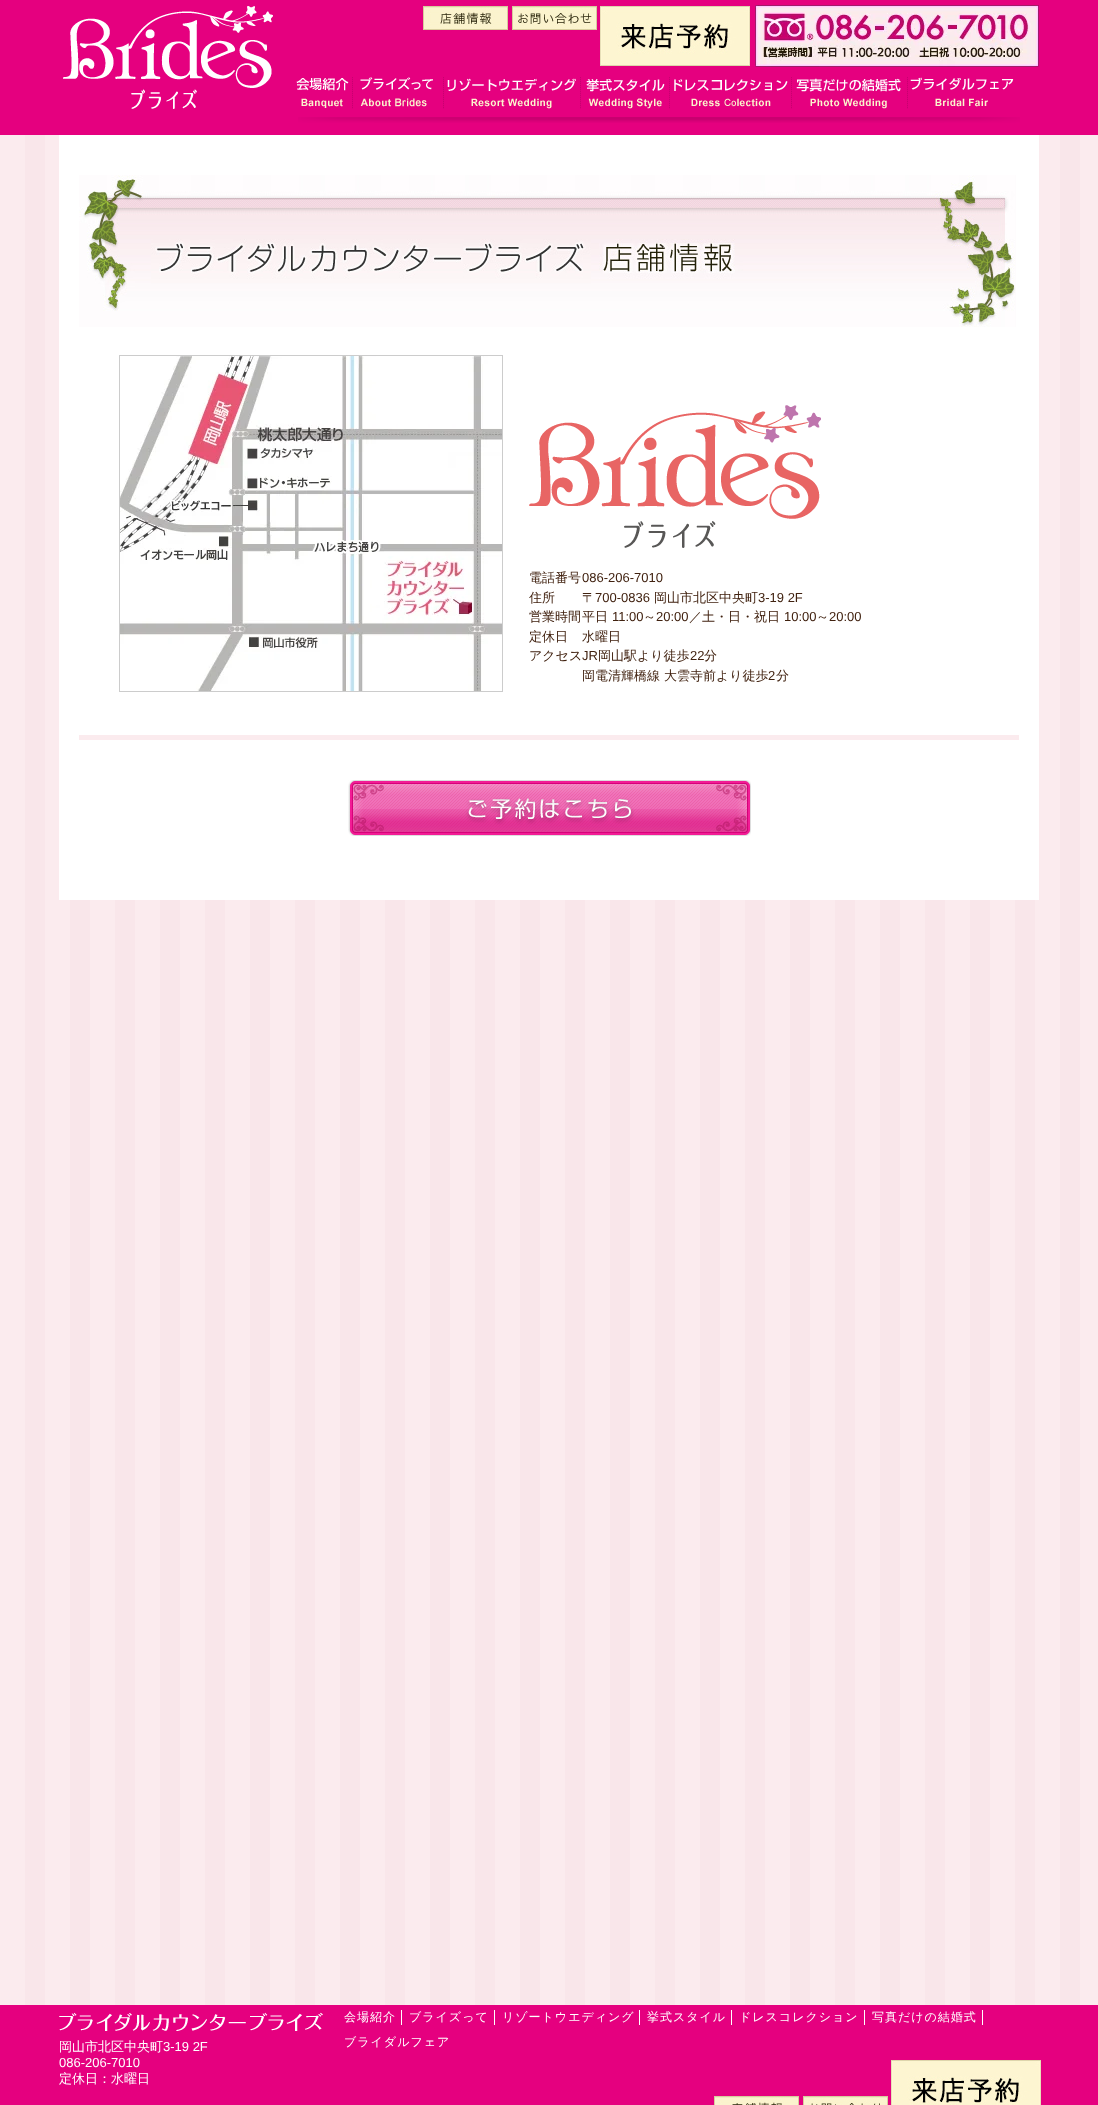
<svg xmlns="http://www.w3.org/2000/svg" xmlns:xlink="http://www.w3.org/1999/xlink" width="1098" height="2105" viewBox="0 0 1098 2105">
<style>
.cls-1{font:500 13px WenQuanYi Zen Hei;fill:#40210f}
.cls-2{font:13px Liberation Sans;fill:#40210f}
.cls-3{font:500 12px WenQuanYi Zen Hei;letter-spacing:1px;fill:#ffffff}
.cls-4{font:500 13px WenQuanYi Zen Hei;fill:#ffffff}
.cls-5{font:13px Liberation Sans;fill:#ffffff}
</style>
<rect width="100%" height="100%" fill="#ffffff"/>
<image xlink:href="image0.png" x="0" y="135" width="1098" height="1870"/>
<rect fill="#e5007f" x="0" y="0" width="1098" height="135"/>
<image xlink:href="image1.png" x="63" y="6" width="210" height="103"/>
<image xlink:href="image2.png" x="298" y="117" width="722" height="6"/>
<image xlink:href="image3.png" x="423" y="6" width="85" height="24"/>
<image xlink:href="image4.png" x="512" y="6" width="85" height="24"/>
<image xlink:href="image5.png" x="600" y="6" width="150" height="60"/>
<image xlink:href="image6.png" x="755" y="5" width="284" height="62"/>
<image xlink:href="image7.png" x="296" y="77" width="57" height="32"/>
<image xlink:href="image8.png" x="360" y="77" width="84" height="32"/>
<image xlink:href="image9.png" x="447" y="77" width="134" height="32"/>
<image xlink:href="image10.png" x="586" y="77" width="84" height="32"/>
<image xlink:href="image11.png" x="674" y="77" width="118" height="32"/>
<image xlink:href="image12.png" x="796" y="77" width="112" height="32"/>
<image xlink:href="image13.png" x="910" y="77" width="104" height="30"/>
<rect fill="#ffffff" x="59" y="135" width="980" height="765"/>
<image xlink:href="image14.png" x="79" y="175" width="937" height="152"/>
<rect fill="none" stroke="#cccccc" x="119.5" y="355.5" width="383" height="336"/>
<image xlink:href="image15.png" x="120" y="356" width="382" height="335"/>
<image xlink:href="image16.png" x="529" y="405" width="292" height="143"/>
<rect fill="#fbebee" x="79" y="735" width="940" height="5"/>
<image xlink:href="image17.png" x="348" y="780" width="403" height="56"/>
<rect fill="#e5007f" x="0" y="2005" width="1098" height="100"/>
<rect fill="#ffffff" x="401" y="2010" width="1" height="15"/>
<rect fill="#ffffff" x="494" y="2010" width="1" height="15"/>
<rect fill="#ffffff" x="639" y="2010" width="1" height="15"/>
<rect fill="#ffffff" x="731" y="2010" width="1" height="15"/>
<rect fill="#ffffff" x="864" y="2010" width="1" height="15"/>
<rect fill="#ffffff" x="982" y="2010" width="1" height="15"/>
<image xlink:href="image18.png" x="714" y="2096" width="85" height="9"/>
<image xlink:href="image19.png" x="803" y="2096" width="85" height="9"/>
<image xlink:href="image20.png" x="891" y="2060" width="150" height="45"/>
<image xlink:href="image21.png" x="59" y="2012" width="264" height="19"/>
<text class="cls-1" x="529" y="582">電話番号</text>
<text class="cls-2" x="582" y="582">086-206-7010</text>
<text class="cls-1" x="529" y="602">住所</text>
<text class="cls-1" x="582" y="602">〒</text>
<text class="cls-2" x="595" y="602">700-0836</text>
<text class="cls-1" x="654" y="602">岡山市北区中央町</text>
<text class="cls-2" x="758" y="602">3-19 2F</text>
<text class="cls-1" x="529" y="621">営業時間</text>
<text class="cls-1" x="582" y="621">平日</text>
<text class="cls-2" x="612" y="621">11:00</text>
<text class="cls-1" x="643" y="621">～</text>
<text class="cls-2" x="656" y="621">20:00</text>
<text class="cls-1" x="689" y="621">／土・日・祝日</text>
<text class="cls-2" x="784" y="621">10:00</text>
<text class="cls-1" x="816" y="621">～</text>
<text class="cls-2" x="829" y="621">20:00</text>
<text class="cls-1" x="529" y="641">定休日</text>
<text class="cls-1" x="582" y="641">水曜日</text>
<text class="cls-1" x="529" y="660">アクセス</text>
<text class="cls-2" x="582" y="660">JR</text>
<text class="cls-1" x="598" y="660">岡山駅より徒歩</text>
<text class="cls-2" x="690" y="660">22</text>
<text class="cls-1" x="704" y="660">分</text>
<text class="cls-1" x="582" y="680">岡電清輝橋線 大雲寺前より徒歩</text>
<text class="cls-2" x="768" y="680">2</text>
<text class="cls-1" x="776" y="680">分</text>
<text class="cls-3" x="344" y="2021">会場紹介</text>
<text class="cls-3" x="409" y="2021">ブライズって</text>
<text class="cls-3" x="502" y="2021">リゾートウエディング</text>
<text class="cls-3" x="647" y="2021">挙式スタイル</text>
<text class="cls-3" x="739" y="2021">ドレスコレクション</text>
<text class="cls-3" x="872" y="2021">写真だけの結婚式</text>
<text class="cls-3" x="344" y="2046">ブライダルフェア</text>
<text class="cls-4" x="59" y="2051">岡山市北区中央町</text>
<text class="cls-5" x="163" y="2051">3-19 2F</text>
<text class="cls-5" x="59" y="2067">086-206-7010</text>
<text class="cls-4" x="59" y="2083">定休日：水曜日</text>
</svg>
